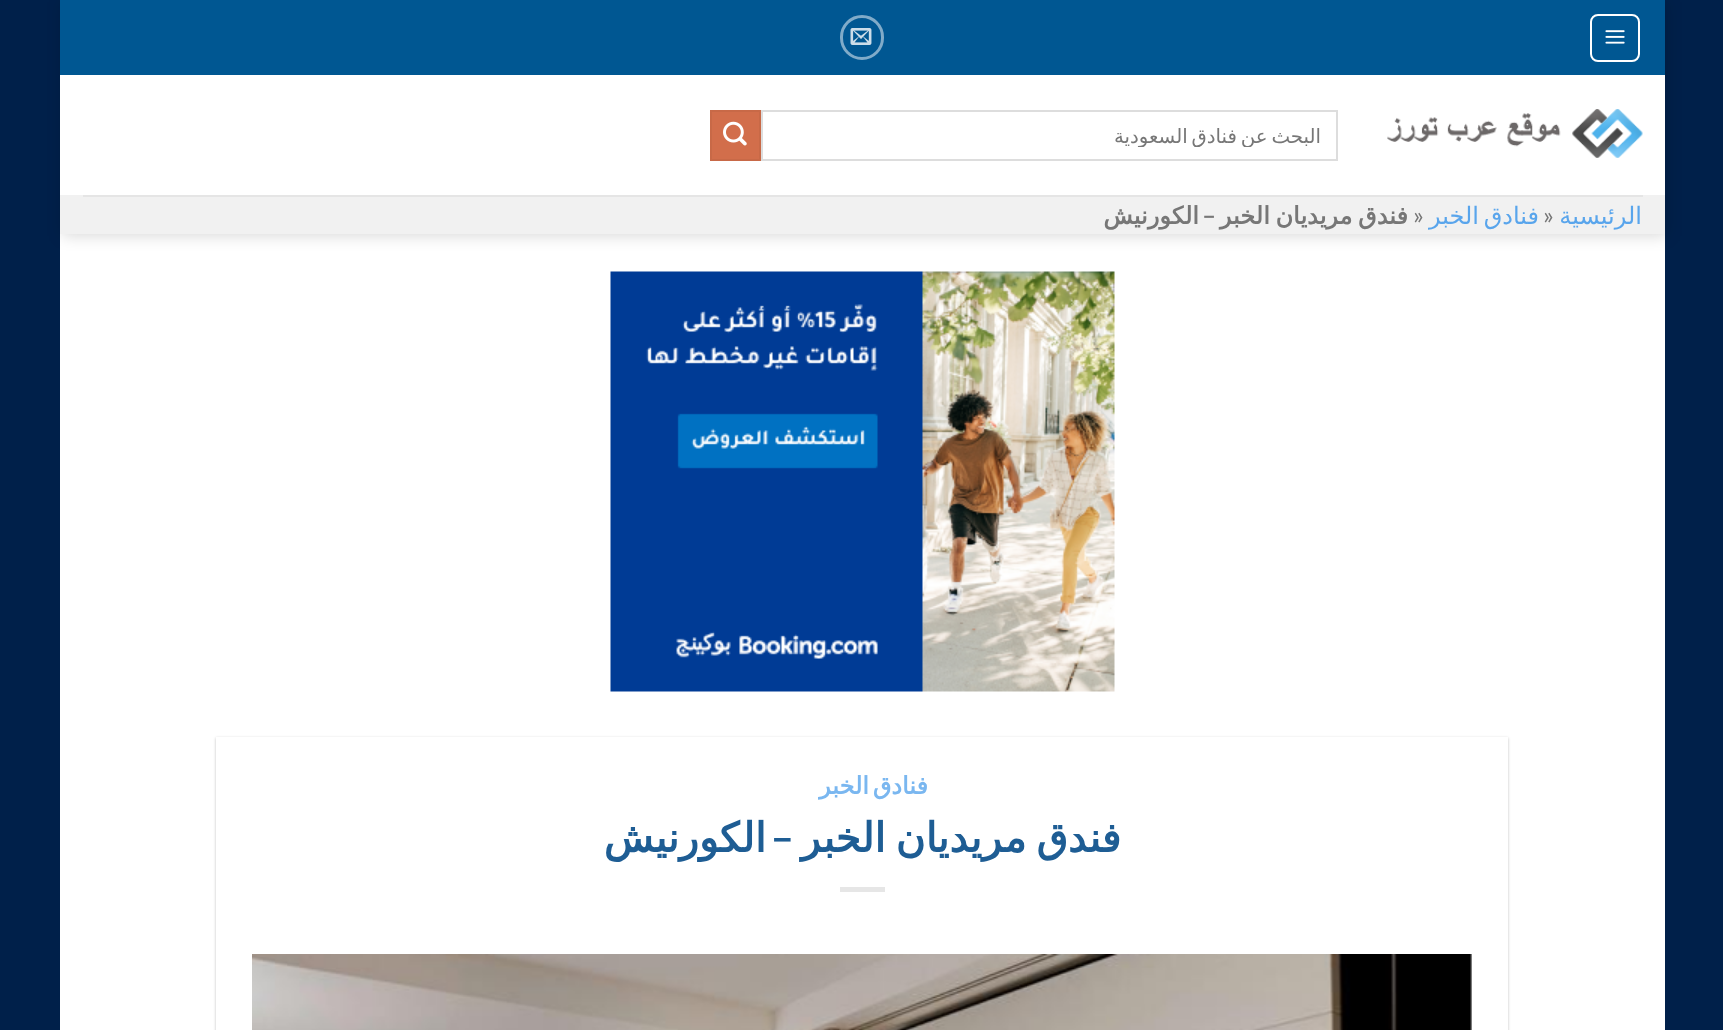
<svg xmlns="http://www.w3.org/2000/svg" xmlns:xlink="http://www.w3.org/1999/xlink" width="1723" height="1030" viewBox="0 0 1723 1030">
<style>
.cls-1{font:19.75px DejaVu Sans;direction:rtl;fill:#777777}
.cls-2{font:24px DejaVu Sans;direction:rtl;fill:#59a5ec}
.cls-3{font:24px Lato;fill:#777777}
.cls-4{font:bold 24px DejaVu Sans;direction:rtl;fill:#777777}
.cls-5{font:bold 24px Lato;direction:rtl;fill:#777777}
.cls-6{font:bold 24px DejaVu Sans;letter-spacing:1.25px;direction:rtl;fill:#7ab7f0}
.cls-7{font:bold 40.75px DejaVu Sans;direction:rtl;fill:#1e5d94}
.cls-8{font:bold 40.75px Lato;direction:rtl;fill:#1e5d94}
</style>
<defs>
<clipPath id="clip1"><path d="M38 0H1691V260H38ZM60 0H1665V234H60Z" clip-rule="evenodd"/></clipPath>
<clipPath id="clip2"><rect x="783" y="123" width="539" height="24"/></clipPath>
</defs>
<rect width="100%" height="100%" fill="#00204a"/>
<rect fill="#ffffff" x="60" y="75" width="1605" height="955"/>
<g clip-path="url(#clip1)">
<rect fill="#000000" fill-opacity="0.15" filter="blur(7.5px)" x="62" y="2" width="1605" height="234"/>
</g>
<rect fill="#005792" x="60" y="0" width="1605" height="75"/>
<rect fill="none" stroke="#ffffff" stroke-width="2" x="1591" y="15" width="48" height="46" rx="7"/>
<image xlink:href="image0.png" x="1605" y="30" width="20" height="14"/>
<rect fill="none" stroke="#80abc9" stroke-width="3" x="841.5" y="16.5" width="41" height="42" rx="20.5"/>
<image xlink:href="image1.png" x="850" y="28" width="22" height="17"/>
<image xlink:href="image2.png" x="1387" y="109" width="256" height="49"/>
<rect fill="none" stroke="#dddddd" stroke-width="2" x="762" y="111" width="575" height="49"/>
<rect fill="#d26e4b" stroke="#c86947" stroke-width="2" x="711" y="111" width="49" height="49"/>
<image xlink:href="image3.png" x="723" y="121" width="24" height="25"/>
<rect fill="#f1f1f1" x="60" y="195" width="1605" height="39"/>
<rect fill="#e5e5e5" x="83" y="195" width="1560" height="2"/>
<image xlink:href="image4.png" x="610" y="271" width="505" height="421"/>
<rect fill="#000000" fill-opacity="0.24" filter="blur(1.5px)" x="216" y="738" width="1292" height="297"/>
<rect fill="#ffffff" x="216" y="737" width="1292" height="293"/>
<rect fill="#e6e6e6" x="840" y="887" width="45" height="5"/>
<image xlink:href="image5.png" x="252" y="954" width="1220" height="76"/>
<g clip-path="url(#clip2)">
<text class="cls-1" x="1321" y="143" word-spacing="-2.5">البحث عن فنادق السعودية</text>
</g>
<text class="cls-2" x="1642" y="224">الرئيسية</text>
<text class="cls-3" x="1543" y="224">»</text>
<text class="cls-2" x="1539" y="224" word-spacing="-3">فنادق الخبر</text>
<text class="cls-3" x="1413" y="224">»</text>
<text class="cls-4" x="1408" y="224" word-spacing="-2">فندق مريديان الخبر</text>
<text class="cls-5" x="1216" y="224">–</text>
<text class="cls-4" x="1199" y="224">الكورنيش</text>
<text class="cls-6" x="928" y="794" word-spacing="-4">فنادق الخبر</text>
<text class="cls-7" x="1121" y="852" word-spacing="-3">فندق مريديان الخبر</text>
<text class="cls-8" x="794" y="852">–</text>
<text class="cls-7" x="766" y="852">الكورنيش</text>
</svg>
